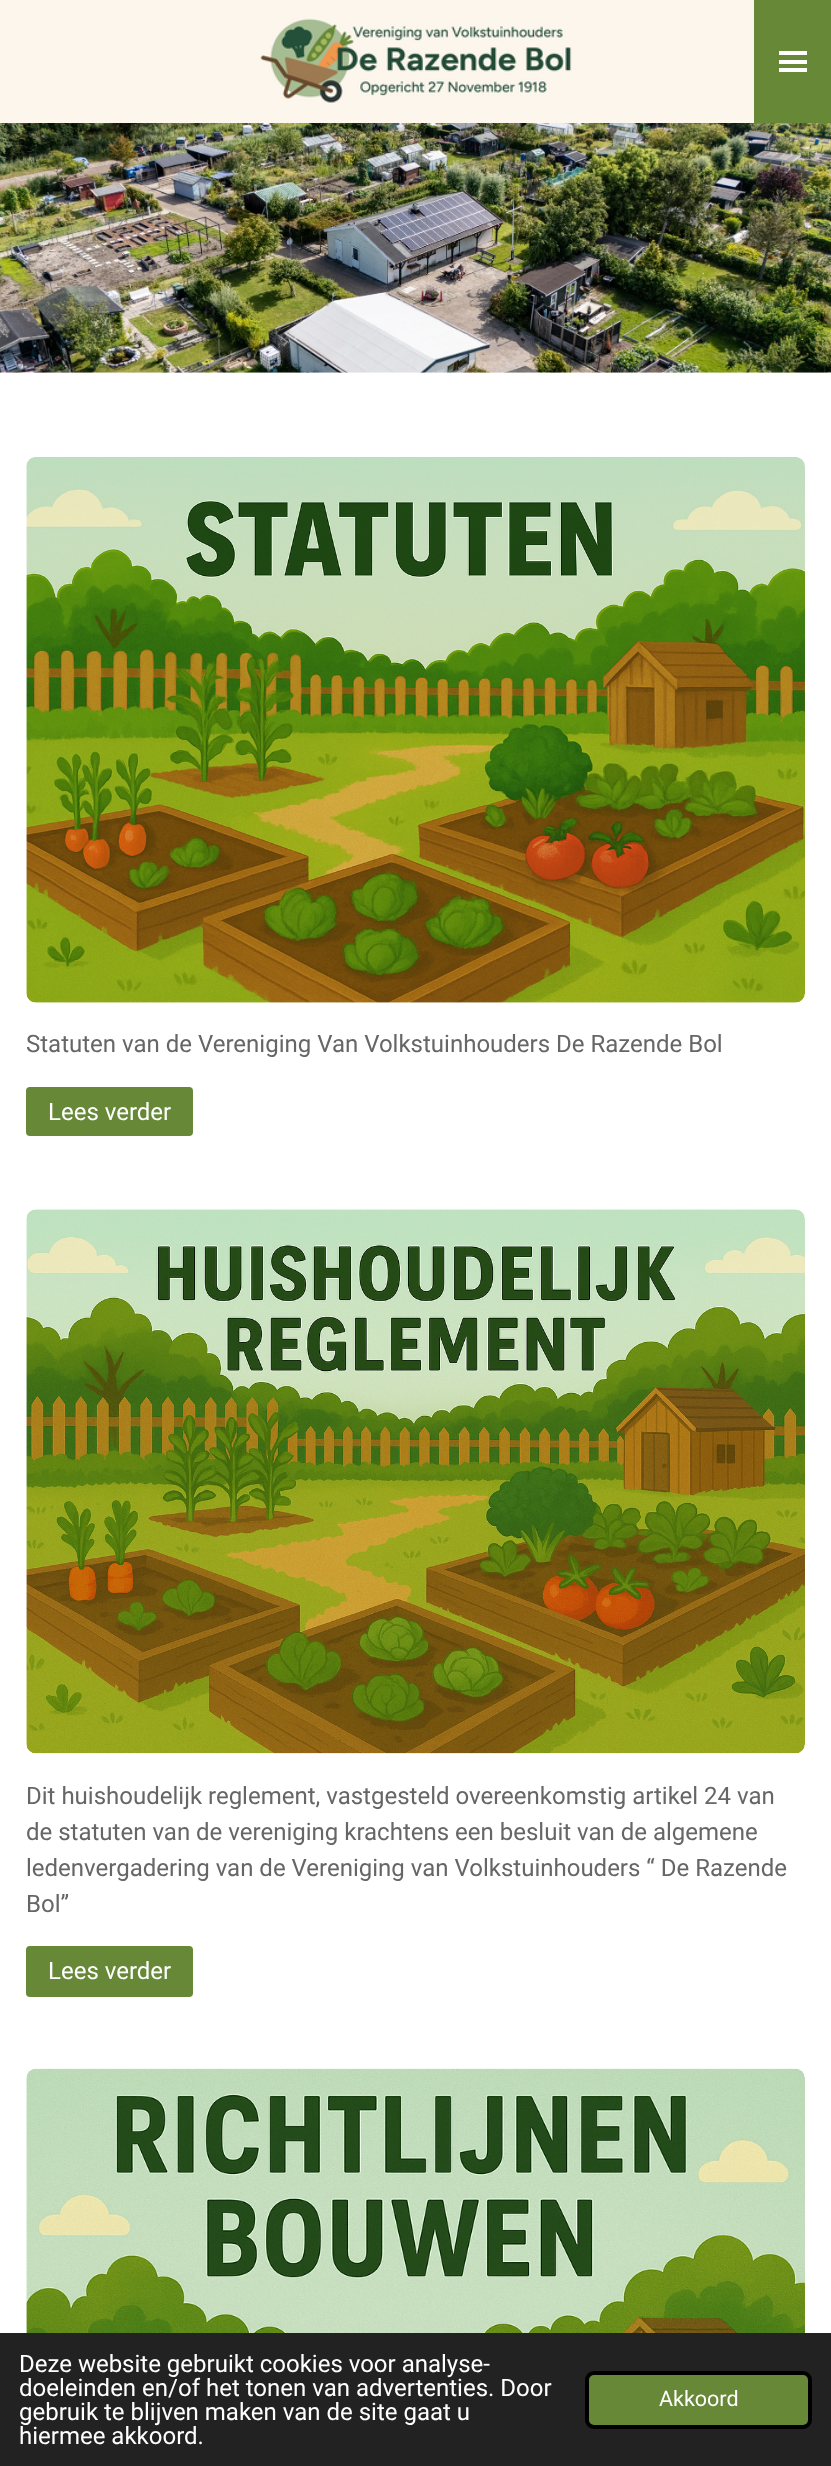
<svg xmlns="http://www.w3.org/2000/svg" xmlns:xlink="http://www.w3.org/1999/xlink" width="831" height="2466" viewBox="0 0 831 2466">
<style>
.cls-1{font:24px Roboto;fill:#666666}
.cls-2{font:24px Roboto;fill:#ffffff}
.cls-3{font:21.5px Roboto;fill:#ffffff}
</style>
<rect width="100%" height="100%" fill="#ffffff"/>
<rect fill="#fdf6ec" x="0" y="0" width="754" height="123"/>
<rect fill="#678837" x="754" y="0" width="77" height="123"/>
<rect fill="#ffffff" x="779" y="60" width="28" height="4"/>
<rect fill="#ffffff" x="779" y="51" width="28" height="4"/>
<rect fill="#ffffff" x="779" y="68" width="28" height="4"/>
<image xlink:href="image0.png" x="259" y="18" width="313" height="86"/>
<image xlink:href="image1.png" x="0" y="123" width="831" height="250"/>
<image xlink:href="image2.png" x="26" y="457" width="779" height="546"/>
<rect fill="#678837" x="26" y="1087" width="167" height="49" rx="4"/>
<image xlink:href="image3.png" x="26" y="1209" width="779" height="545"/>
<rect fill="#678837" x="26" y="1946" width="167" height="51" rx="4"/>
<image xlink:href="image4.png" x="26" y="2068" width="779" height="265"/>
<rect fill="#222222" x="0" y="2333" width="831" height="133"/>
<rect fill="#678837" stroke="#000000" stroke-width="4" x="587" y="2373" width="223" height="54" rx="7"/>
<text class="cls-1" x="26" y="1052">Statuten van de Vereniging Van Volkstuinhouders De Razende Bol</text>
<text class="cls-2" x="48" y="1120">Lees verder</text>
<text class="cls-1"><tspan x="26" y="1804">Dit huishoudelijk reglement, vastgesteld overeenkomstig artikel 24 van</tspan><tspan x="26" y="1840">de statuten van de vereniging krachtens een besluit van de algemene</tspan><tspan x="26" y="1876">ledenvergadering van de Vereniging van Volkstuinhouders “ De Razende</tspan><tspan x="26" y="1912">Bol”</tspan></text>
<text class="cls-2" x="48" y="1979">Lees verder</text>
<text class="cls-2"><tspan x="19" y="2372">Deze website gebruikt cookies voor analyse-</tspan><tspan x="19" y="2396">doeleinden en/of het tonen van advertenties. Door</tspan><tspan x="19" y="2420">gebruik te blijven maken van de site gaat u</tspan><tspan x="19" y="2444">hiermee akkoord.</tspan></text>
<text class="cls-3" x="659" y="2406">Akkoord</text>
</svg>
